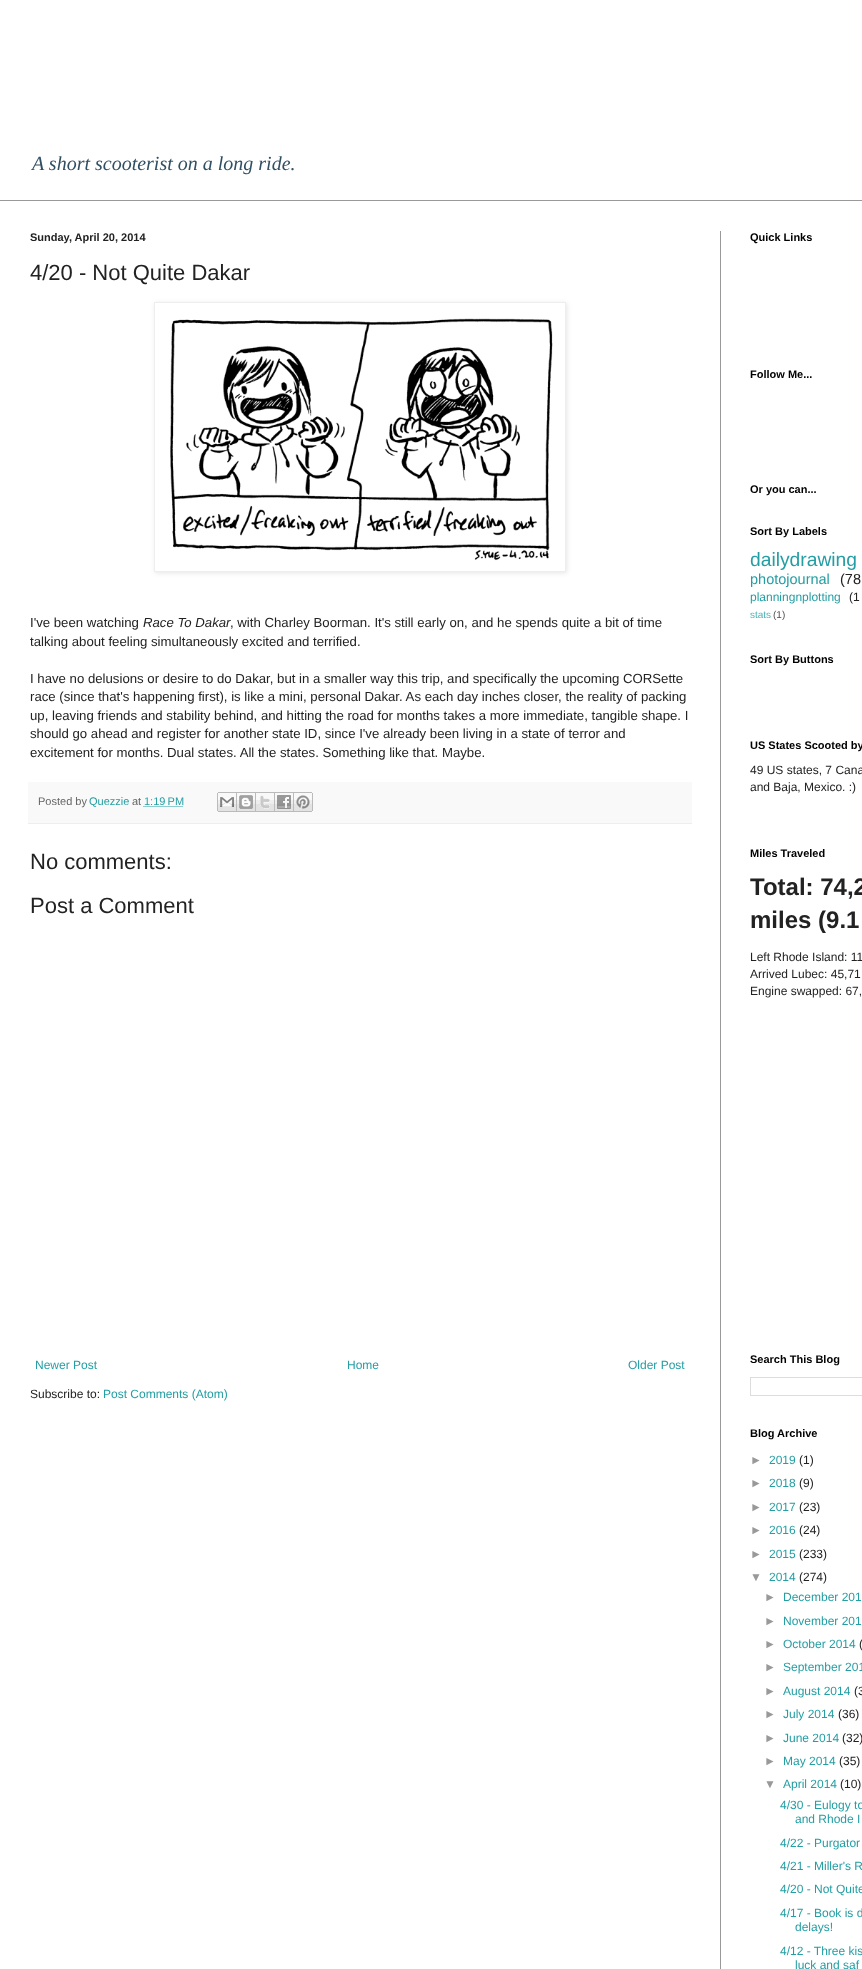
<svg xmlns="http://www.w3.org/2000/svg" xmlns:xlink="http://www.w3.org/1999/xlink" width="862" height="1969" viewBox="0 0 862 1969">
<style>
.cls-1{font:italic 20px Liberation Serif;fill:#304f63}
.cls-2{font:bold 11px Liberation Sans;fill:#222222}
.cls-3{font:22px Liberation Sans;fill:#222222}
.cls-4{font:13.2px Liberation Sans;fill:#222222}
.cls-5{font:italic 13.2px Liberation Sans;fill:#222222}
.cls-6{font:11px Liberation Sans;fill:#666666}
.cls-7{font:11px Liberation Sans;fill:#239ea3}
.cls-8{font:12px Liberation Sans;fill:#239ea3}
.cls-9{font:12px Liberation Sans;fill:#222222}
.cls-10{font:bold 11px Liberation Sans;fill:#000000}
.cls-11{font:19.25px Liberation Sans;fill:#239ea3}
.cls-12{font:14.5px Liberation Sans;fill:#239ea3}
.cls-13{font:14.5px Liberation Sans;fill:#222222}
.cls-14{font:10px Liberation Sans;fill:#4fb1b5}
.cls-15{font:10px Liberation Sans;fill:#4e4e4e}
.cls-16{font:bold 24px Liberation Sans;fill:#222222}
.cls-17{font:12px Liberation Sans;fill:#999999}
</style>
<defs>
<clipPath id="clip1"><path d="M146 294H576V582H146ZM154 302H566V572H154Z" clip-rule="evenodd"/></clipPath>
</defs>
<rect width="100%" height="100%" fill="#ffffff"/>
<rect fill="#999999" x="0" y="200" width="862" height="1"/>
<rect fill="#999999" x="720" y="231" width="1" height="1738"/>
<g clip-path="url(#clip1)">
<rect fill="#000000" fill-opacity="0.1" filter="blur(2.5px)" x="155" y="303" width="412" height="270"/>
</g>
<rect fill="none" stroke="#eeeeee" x="154.5" y="302.5" width="411" height="269"/>
<image xlink:href="image0.png" x="170" y="318" width="383" height="243"/>
<rect fill="#f9f9f9" x="28" y="782" width="664" height="41"/>
<rect fill="#eeeeee" x="28" y="823" width="664" height="1"/>
<path fill="none" stroke="#239ea3" stroke-dasharray="1 1" d="M143.5 806.5H183"/>
<image xlink:href="image1.png" x="217" y="792" width="20" height="20"/>
<image xlink:href="image2.png" x="237" y="792" width="19" height="20"/>
<image xlink:href="image3.png" x="256" y="792" width="19" height="20"/>
<image xlink:href="image4.png" x="275" y="792" width="19" height="20"/>
<image xlink:href="image5.png" x="294" y="792" width="19" height="20"/>
<rect fill="none" stroke="#dddddd" x="750.5" y="1377.5" width="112" height="18"/>
<text class="cls-1" x="32" y="170">A short scooterist on a long ride.</text>
<text class="cls-2" x="30" y="241">Sunday, April 20, 2014</text>
<text class="cls-3" x="30" y="280">4/20 - Not Quite Dakar</text>
<text class="cls-4" x="30" y="627">I've been watching</text>
<text class="cls-5" x="143" y="627">Race To Dakar</text>
<text class="cls-4" x="230" y="627">, with Charley Boorman. It's still early on, and he spends quite a bit of time</text>
<text class="cls-4" x="30" y="646">talking about feeling simultaneously excited and terrified.</text>
<text class="cls-4"><tspan x="30" y="683">I have no delusions or desire to do Dakar, but in a smaller way this trip, and specifically the upcoming CORSette</tspan><tspan x="30" y="701">race (since that's happening first), is like a mini, personal Dakar. As each day inches closer, the reality of packing</tspan><tspan x="30" y="720">up, leaving friends and stability behind, and hitting the road for months takes a more immediate, tangible shape. I</tspan><tspan x="30" y="738">should go ahead and register for another state ID, since I've already been living in a state of terror and</tspan><tspan x="30" y="757">excitement for months. Dual states. All the states. Something like that. Maybe.</tspan></text>
<text class="cls-6" x="38" y="805">Posted by</text>
<text class="cls-7" x="89" y="805">Quezzie</text>
<text class="cls-6" x="132" y="805">at</text>
<text class="cls-7" x="144" y="805">1:19 PM</text>
<text class="cls-3" x="30" y="869">No comments:</text>
<text class="cls-3" x="30" y="913">Post a Comment</text>
<text class="cls-8" x="35" y="1369">Newer Post</text>
<text class="cls-8" x="347" y="1369">Home</text>
<text class="cls-8" x="628" y="1369">Older Post</text>
<text class="cls-9" x="30" y="1398">Subscribe to:</text>
<text class="cls-8" x="103" y="1398">Post Comments (Atom)</text>
<text class="cls-10" x="750" y="241">Quick Links</text>
<text class="cls-10" x="750" y="378">Follow Me...</text>
<text class="cls-10" x="750" y="493">Or you can...</text>
<text class="cls-10" x="750" y="535">Sort By Labels</text>
<text class="cls-11" x="750" y="566">dailydrawing</text>
<text class="cls-12" x="750" y="584">photojournal</text>
<text class="cls-13" x="840" y="584">(78</text>
<text class="cls-8" x="750" y="601">planningnplotting</text>
<text class="cls-9" x="849" y="601">(1</text>
<text class="cls-14" x="750" y="618">stats</text>
<text class="cls-15" x="773" y="618">(1)</text>
<text class="cls-10" x="750" y="663">Sort By Buttons</text>
<text class="cls-10" x="750" y="749">US States Scooted by</text>
<text class="cls-9"><tspan x="750" y="774">49 US states, 7 Cana</tspan><tspan x="750" y="791">and Baja, Mexico. :)</tspan></text>
<text class="cls-10" x="750" y="857">Miles Traveled</text>
<text class="cls-16"><tspan x="750" y="895">Total: 74,2</tspan><tspan x="750" y="928">miles (9.1</tspan></text>
<text class="cls-9"><tspan x="750" y="961">Left Rhode Island: 11</tspan><tspan x="750" y="978">Arrived Lubec: 45,71</tspan><tspan x="750" y="995">Engine swapped: 67,</tspan></text>
<text class="cls-10" x="750" y="1363">Search This Blog</text>
<text class="cls-10" x="750" y="1437">Blog Archive</text>
<text class="cls-17" x="750" y="1464">►</text>
<text class="cls-8" x="769" y="1464">2019</text>
<text class="cls-9" x="799" y="1464">(1)</text>
<text class="cls-17" x="750" y="1487">►</text>
<text class="cls-8" x="769" y="1487">2018</text>
<text class="cls-9" x="799" y="1487">(9)</text>
<text class="cls-17" x="750" y="1511">►</text>
<text class="cls-8" x="769" y="1511">2017</text>
<text class="cls-9" x="799" y="1511">(23)</text>
<text class="cls-17" x="750" y="1534">►</text>
<text class="cls-8" x="769" y="1534">2016</text>
<text class="cls-9" x="799" y="1534">(24)</text>
<text class="cls-17" x="750" y="1558">►</text>
<text class="cls-8" x="769" y="1558">2015</text>
<text class="cls-9" x="799" y="1558">(233)</text>
<text class="cls-17" x="750" y="1581">▼</text>
<text class="cls-8" x="769" y="1581">2014</text>
<text class="cls-9" x="799" y="1581">(274)</text>
<text class="cls-17" x="764" y="1601">►</text>
<text class="cls-8" x="783" y="1601">December 201</text>
<text class="cls-17" x="764" y="1625">►</text>
<text class="cls-8" x="783" y="1625">November 201</text>
<text class="cls-17" x="764" y="1648">►</text>
<text class="cls-8" x="783" y="1648">October 2014</text>
<text class="cls-9" x="859" y="1648">(</text>
<text class="cls-17" x="764" y="1671">►</text>
<text class="cls-8" x="783" y="1671">September 201</text>
<text class="cls-17" x="764" y="1695">►</text>
<text class="cls-8" x="783" y="1695">August 2014</text>
<text class="cls-9" x="854" y="1695">(3</text>
<text class="cls-17" x="764" y="1718">►</text>
<text class="cls-8" x="783" y="1718">July 2014</text>
<text class="cls-9" x="838" y="1718">(36)</text>
<text class="cls-17" x="764" y="1742">►</text>
<text class="cls-8" x="783" y="1742">June 2014</text>
<text class="cls-9" x="842" y="1742">(32)</text>
<text class="cls-17" x="764" y="1765">►</text>
<text class="cls-8" x="783" y="1765">May 2014</text>
<text class="cls-9" x="839" y="1765">(35)</text>
<text class="cls-17" x="764" y="1788">▼</text>
<text class="cls-8" x="783" y="1788">April 2014</text>
<text class="cls-9" x="840" y="1788">(10)</text>
<text class="cls-8" x="780" y="1809">4/30 - Eulogy to</text>
<text class="cls-8" x="795" y="1823">and Rhode I</text>
<text class="cls-8"><tspan x="780" y="1847">4/22 - Purgator</tspan><tspan x="780" y="1870">4/21 - Miller's R</tspan><tspan x="780" y="1893">4/20 - Not Quite</tspan></text>
<text class="cls-8" x="780" y="1917">4/17 - Book is d</text>
<text class="cls-8" x="795" y="1931">delays!</text>
<text class="cls-8" x="780" y="1955">4/12 - Three kis</text>
<text class="cls-8" x="795" y="1969">luck and saf</text>
</svg>
